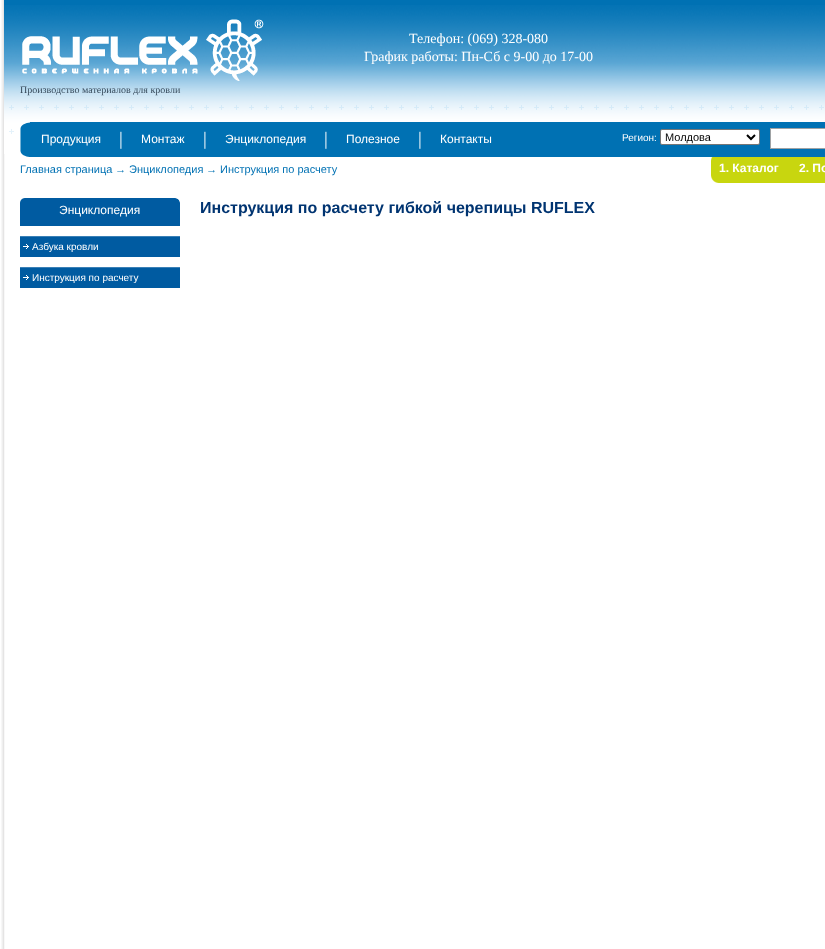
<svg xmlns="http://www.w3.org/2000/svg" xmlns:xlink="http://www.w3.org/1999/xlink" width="825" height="949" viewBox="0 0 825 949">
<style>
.cls-1{font:14px Liberation Serif;fill:#ffffff}
.cls-2{font:10px Liberation Serif;fill:#36495a}
.cls-3{font:12px Liberation Sans;fill:#ffffff}
.cls-4{font:10px Liberation Sans;fill:#ffffff}
.cls-5{font:11px Liberation Sans;fill:#000000}
.cls-6{font:11px Liberation Sans;fill:#0071b3}
.cls-7{font:11px Liberation Serif;fill:#0071b3}
.cls-8{font:bold 12px Liberation Sans;fill:#ffffff}
.cls-9{font:bold 16px Liberation Sans;fill:#003471}
</style>
<rect width="100%" height="100%" fill="#ffffff"/>
<image xlink:href="image0.png" x="1" y="0" width="4" height="949"/>
<rect fill="#0071b3" x="4" y="0" width="821" height="5"/>
<image xlink:href="image1.png" x="4" y="5" width="821" height="149"/>
<image xlink:href="image2.png" x="22" y="19" width="242" height="62"/>
<image xlink:href="image3.png" x="20" y="122" width="10" height="35"/>
<rect fill="#0071b3" x="30" y="122" width="795" height="35"/>
<image xlink:href="image4.png" x="120" y="131" width="2" height="18"/>
<image xlink:href="image4.png" x="204" y="131" width="2" height="18"/>
<image xlink:href="image4.png" x="325" y="131" width="2" height="18"/>
<image xlink:href="image4.png" x="419" y="131" width="2" height="18"/>
<rect fill="#ffffff" stroke="#767676" x="660.5" y="129.5" width="99" height="15" rx="1.5"/>
<path fill="none" stroke="#000000" stroke-width="2" d="M747 135L751 139L755 135"/>
<rect fill="#ffffff" stroke="#9fa2a4" x="770.5" y="128.5" width="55" height="20"/>
<rect fill="#c8d60f" x="711" y="157" width="114" height="26"/>
<image xlink:href="image5.png" x="711" y="157" width="2" height="4"/>
<image xlink:href="image6.png" x="711" y="175" width="8" height="8"/>
<rect fill="#005ba1" x="20" y="198" width="160" height="28"/>
<image xlink:href="image7.png" x="20" y="198" width="160" height="5"/>
<image xlink:href="image8.png" x="175" y="198" width="5" height="5"/>
<rect fill="#005ba1" x="20" y="237" width="160" height="20"/>
<rect fill="#3a80b6" x="20" y="236" width="160" height="1"/>
<image xlink:href="image9.png" x="23" y="244" width="6" height="5"/>
<rect fill="#005ba1" x="20" y="268" width="160" height="20"/>
<rect fill="#3a80b6" x="20" y="267" width="160" height="1"/>
<image xlink:href="image9.png" x="23" y="275" width="6" height="5"/>
<text class="cls-1" x="409" y="43">Телефон: (069) 328-080</text>
<text class="cls-1" x="364" y="61">График работы: Пн-Сб с 9-00 до 17-00</text>
<text class="cls-2" x="20" y="93">Производство материалов для кровли</text>
<text class="cls-3" x="41" y="143">Продукция</text>
<text class="cls-3" x="141" y="143">Монтаж</text>
<text class="cls-3" x="225" y="143">Энциклопедия</text>
<text class="cls-3" x="346" y="143">Полезное</text>
<text class="cls-3" x="440" y="143">Контакты</text>
<text class="cls-4" x="622" y="141">Регион:</text>
<text class="cls-5" x="665" y="141">Молдова</text>
<text class="cls-6" x="20" y="173">Главная страница</text>
<text class="cls-7" x="115" y="173">→</text>
<text class="cls-6" x="129" y="173">Энциклопедия</text>
<text class="cls-7" x="206" y="173">→</text>
<text class="cls-6" x="220" y="173">Инструкция по расчету</text>
<text class="cls-8" x="719" y="172">1. Каталог</text>
<text class="cls-8" x="799" y="172">2. По</text>
<text class="cls-3" x="59" y="214">Энциклопедия</text>
<text class="cls-4" x="32" y="250">Азбука кровли</text>
<text class="cls-4" x="32" y="281">Инструкция по расчету</text>
<text class="cls-9" x="200" y="213">Инструкция по расчету гибкой черепицы RUFLEX</text>
</svg>
